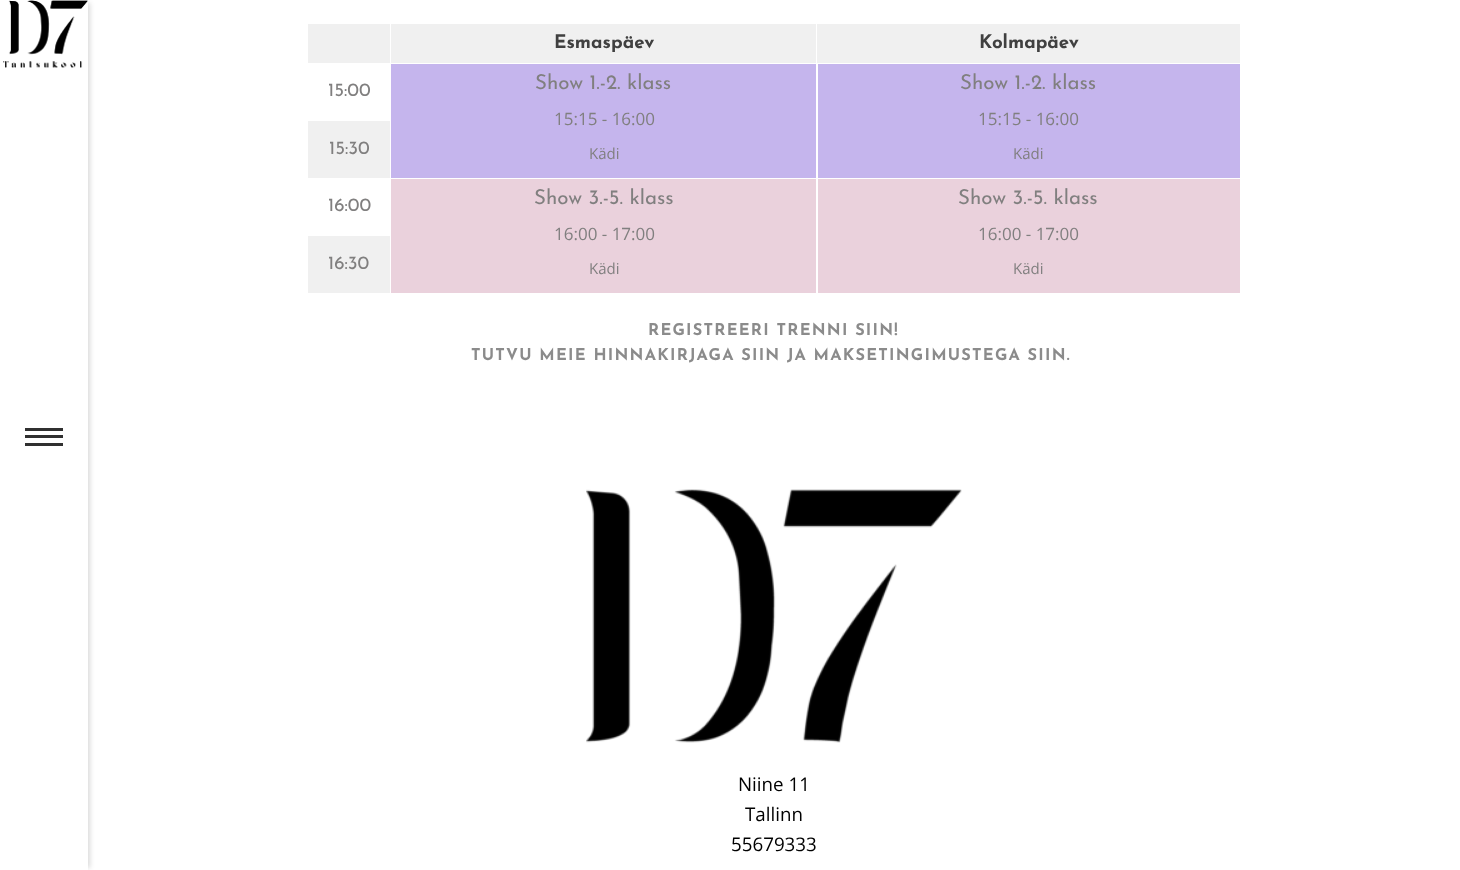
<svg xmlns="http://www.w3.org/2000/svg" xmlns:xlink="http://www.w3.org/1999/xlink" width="1460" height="870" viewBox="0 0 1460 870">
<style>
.cls-1{font:bold 18.75px Josefin Sans;fill:#404040}
.cls-2{font:18.75px Josefin Sans;fill:#807f7f}
.cls-3{font:20.5px Josefin Sans;fill:#807f7f}
.cls-4{font:17px Open Sans;fill:#807f7f}
.cls-5{font:15px Open Sans;fill:#807f7f}
.cls-6{font:bold 16.25px Josefin Sans;letter-spacing:1.25px;fill:#8b8b8b}
.cls-7{font:18.75px Open Sans;fill:#000000}
</style>
<rect width="100%" height="100%" fill="#ffffff"/>
<rect fill="#000000" fill-opacity="0.15" filter="blur(2.5px)" x="-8" y="3" width="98" height="865"/>
<rect fill="#ffffff" x="0" y="0" width="88" height="870"/>
<image xlink:href="image0.png" x="3" y="0" width="85" height="68"/>
<image xlink:href="image1.png" x="3" y="0" width="85" height="68"/>
<rect fill="#303030" x="25" y="435" width="38" height="3"/>
<rect fill="#303030" x="25" y="428" width="38" height="3"/>
<rect fill="#303030" x="25" y="443" width="38" height="3"/>
<rect fill="#f0f0f0" x="308" y="24" width="82" height="39"/>
<rect fill="#f0f0f0" x="391" y="24" width="425" height="39"/>
<rect fill="#f0f0f0" x="817" y="24" width="423" height="39"/>
<rect fill="#c5b5ed" x="391" y="64" width="425" height="114"/>
<rect fill="#c5b5ed" x="818" y="64" width="422" height="114"/>
<rect fill="#f0f0f0" x="308" y="121" width="82" height="57"/>
<rect fill="#ead1dc" x="391" y="179" width="425" height="114"/>
<rect fill="#ead1dc" x="818" y="179" width="422" height="114"/>
<rect fill="#f0f0f0" x="308" y="236" width="82" height="57"/>
<image xlink:href="image2.png" x="586" y="489" width="376" height="254"/>
<text class="cls-1" x="554" y="48">Esmaspäev</text>
<text class="cls-1" x="979" y="48">Kolmapäev</text>
<text class="cls-2" x="328" y="96">15:00</text>
<text class="cls-3" x="535" y="89">Show 1.-2. klass</text>
<text class="cls-4" x="554" y="125">15:15 - 16:00</text>
<text class="cls-5" x="589" y="159">Kädi</text>
<text class="cls-3" x="960" y="89">Show 1.-2. klass</text>
<text class="cls-4" x="978" y="125">15:15 - 16:00</text>
<text class="cls-5" x="1013" y="159">Kädi</text>
<text class="cls-2" x="329" y="154">15:30</text>
<text class="cls-2" x="328" y="211">16:00</text>
<text class="cls-3" x="534" y="204">Show 3.-5. klass</text>
<text class="cls-4" x="554" y="240">16:00 - 17:00</text>
<text class="cls-5" x="589" y="274">Kädi</text>
<text class="cls-3" x="958" y="204">Show 3.-5. klass</text>
<text class="cls-4" x="978" y="240">16:00 - 17:00</text>
<text class="cls-5" x="1013" y="274">Kädi</text>
<text class="cls-2" x="328" y="269">16:30</text>
<text class="cls-6" x="648" y="335">REGISTREERI TRENNI SIIN!</text>
<text class="cls-6" x="471" y="360">TUTVU MEIE HINNAKIRJAGA SIIN JA MAKSETINGIMUSTEGA SIIN.</text>
<text class="cls-7" x="738" y="791">Niine 11</text>
<text class="cls-7" x="745" y="821">Tallinn</text>
<text class="cls-7" x="731" y="851">55679333</text>
</svg>
